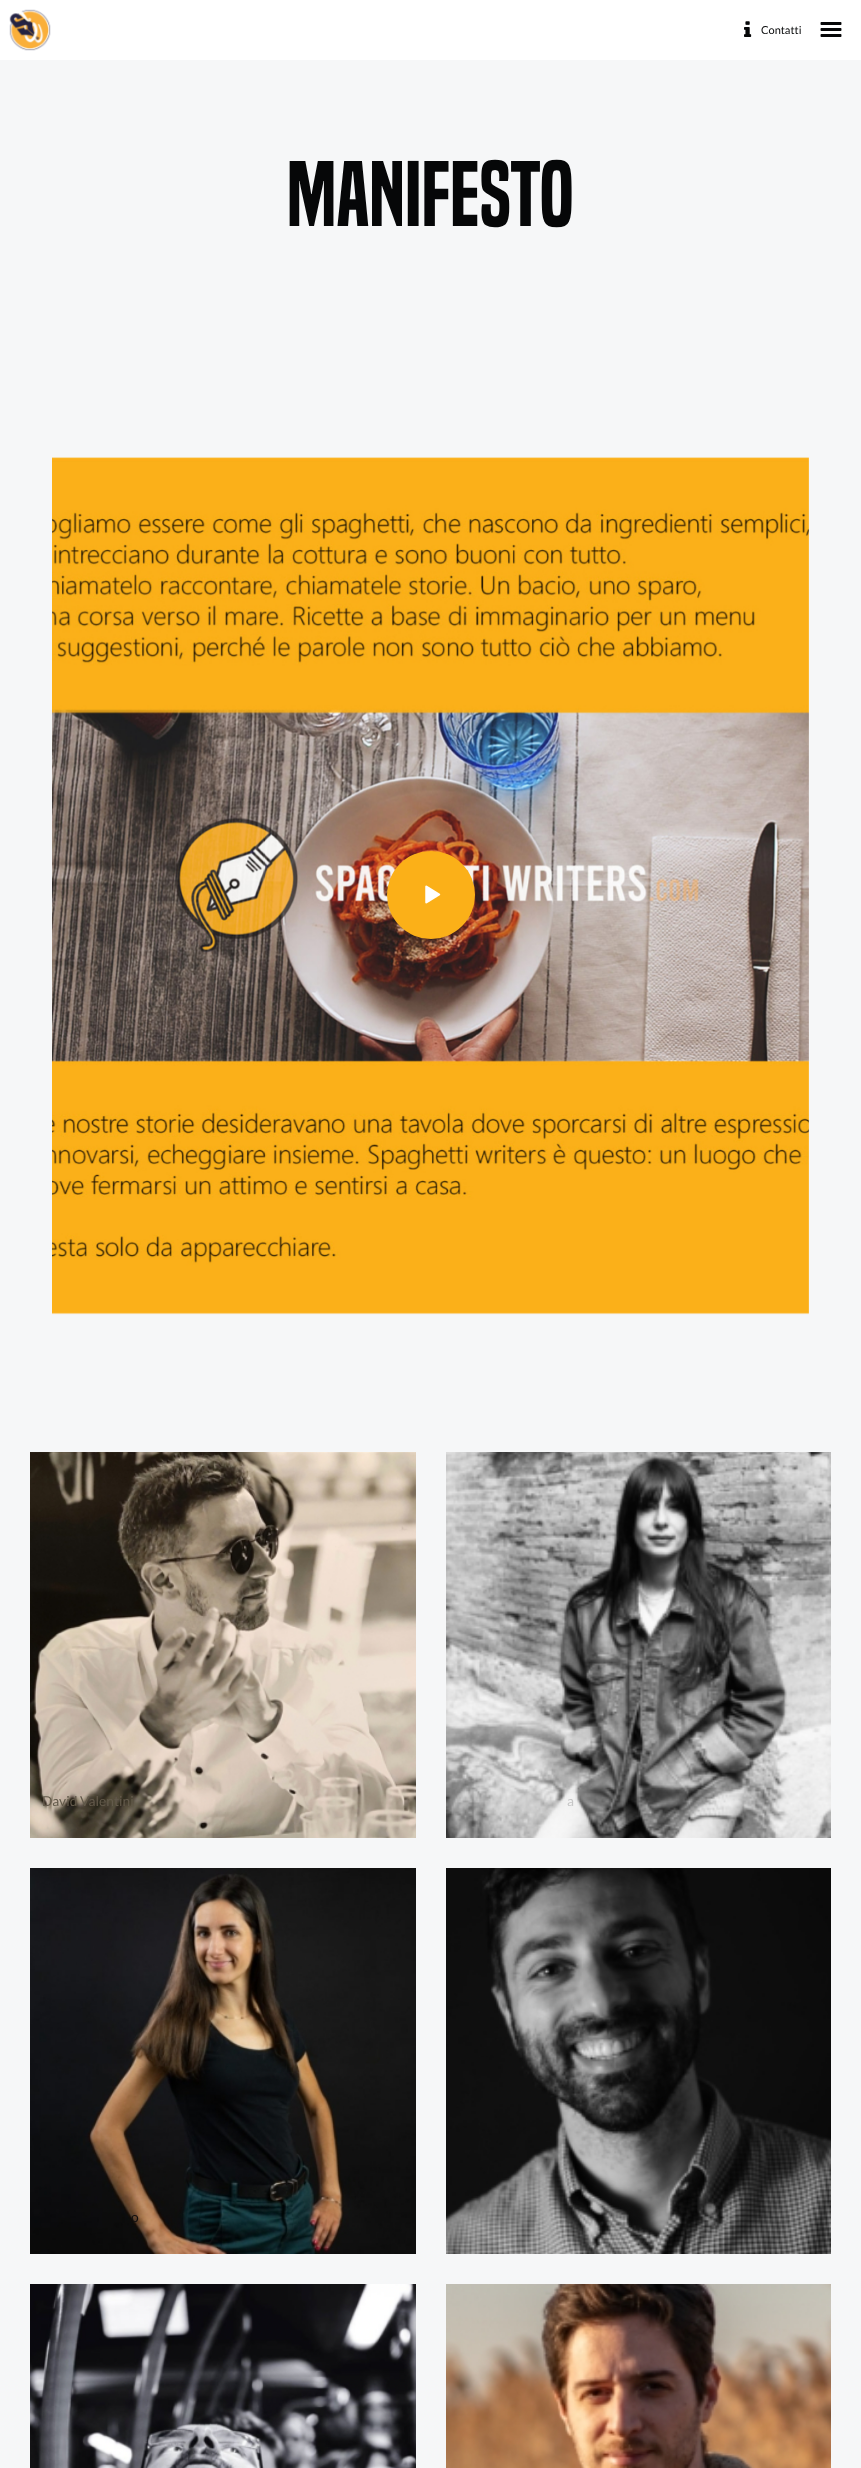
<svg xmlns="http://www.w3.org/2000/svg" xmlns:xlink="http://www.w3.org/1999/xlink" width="861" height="2468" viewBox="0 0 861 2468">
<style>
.cls-1{font:11px Lato;fill:#060708}
.cls-2{font:86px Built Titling;fill:#060708}
.cls-3{font:13.75px Lato;fill:#635a4b}
.cls-4{font:13.75px Lato;fill:#c7c7c7}
.cls-5{font:13.75px Lato;fill:#100e0e}
</style>
<rect width="100%" height="100%" fill="#f6f7f8"/>
<rect fill="#ffffff" x="0" y="0" width="861" height="60"/>
<image xlink:href="image0.png" x="9" y="9" width="42" height="42"/>
<image xlink:href="image1.png" x="744" y="21" width="8" height="16"/>
<image xlink:href="image2.png" x="820" y="22" width="22" height="15"/>
<image xlink:href="image3.png" x="52" y="457" width="757" height="858"/>
<circle fill="#fbb018" cx="431" cy="895" r="44"/>
<image xlink:href="image4.png" x="425" y="885" width="16" height="19"/>
<image xlink:href="image5.png" x="30" y="1452" width="386" height="386"/>
<image xlink:href="image6.png" x="446" y="1452" width="385" height="386"/>
<image xlink:href="image7.png" x="30" y="1868" width="386" height="386"/>
<image xlink:href="image8.png" x="446" y="1868" width="385" height="386"/>
<image xlink:href="image9.png" x="30" y="2284" width="386" height="184"/>
<image xlink:href="image10.png" x="446" y="2284" width="385" height="184"/>
<text class="cls-1" x="761" y="34">Contatti</text>
<text class="cls-2" x="287" y="226">Manifesto</text>
<text class="cls-3" x="42" y="1806">David Valentini</text>
<text class="cls-4" x="567" y="1806">a</text>
<text class="cls-5" x="131" y="2222">o</text>
</svg>
